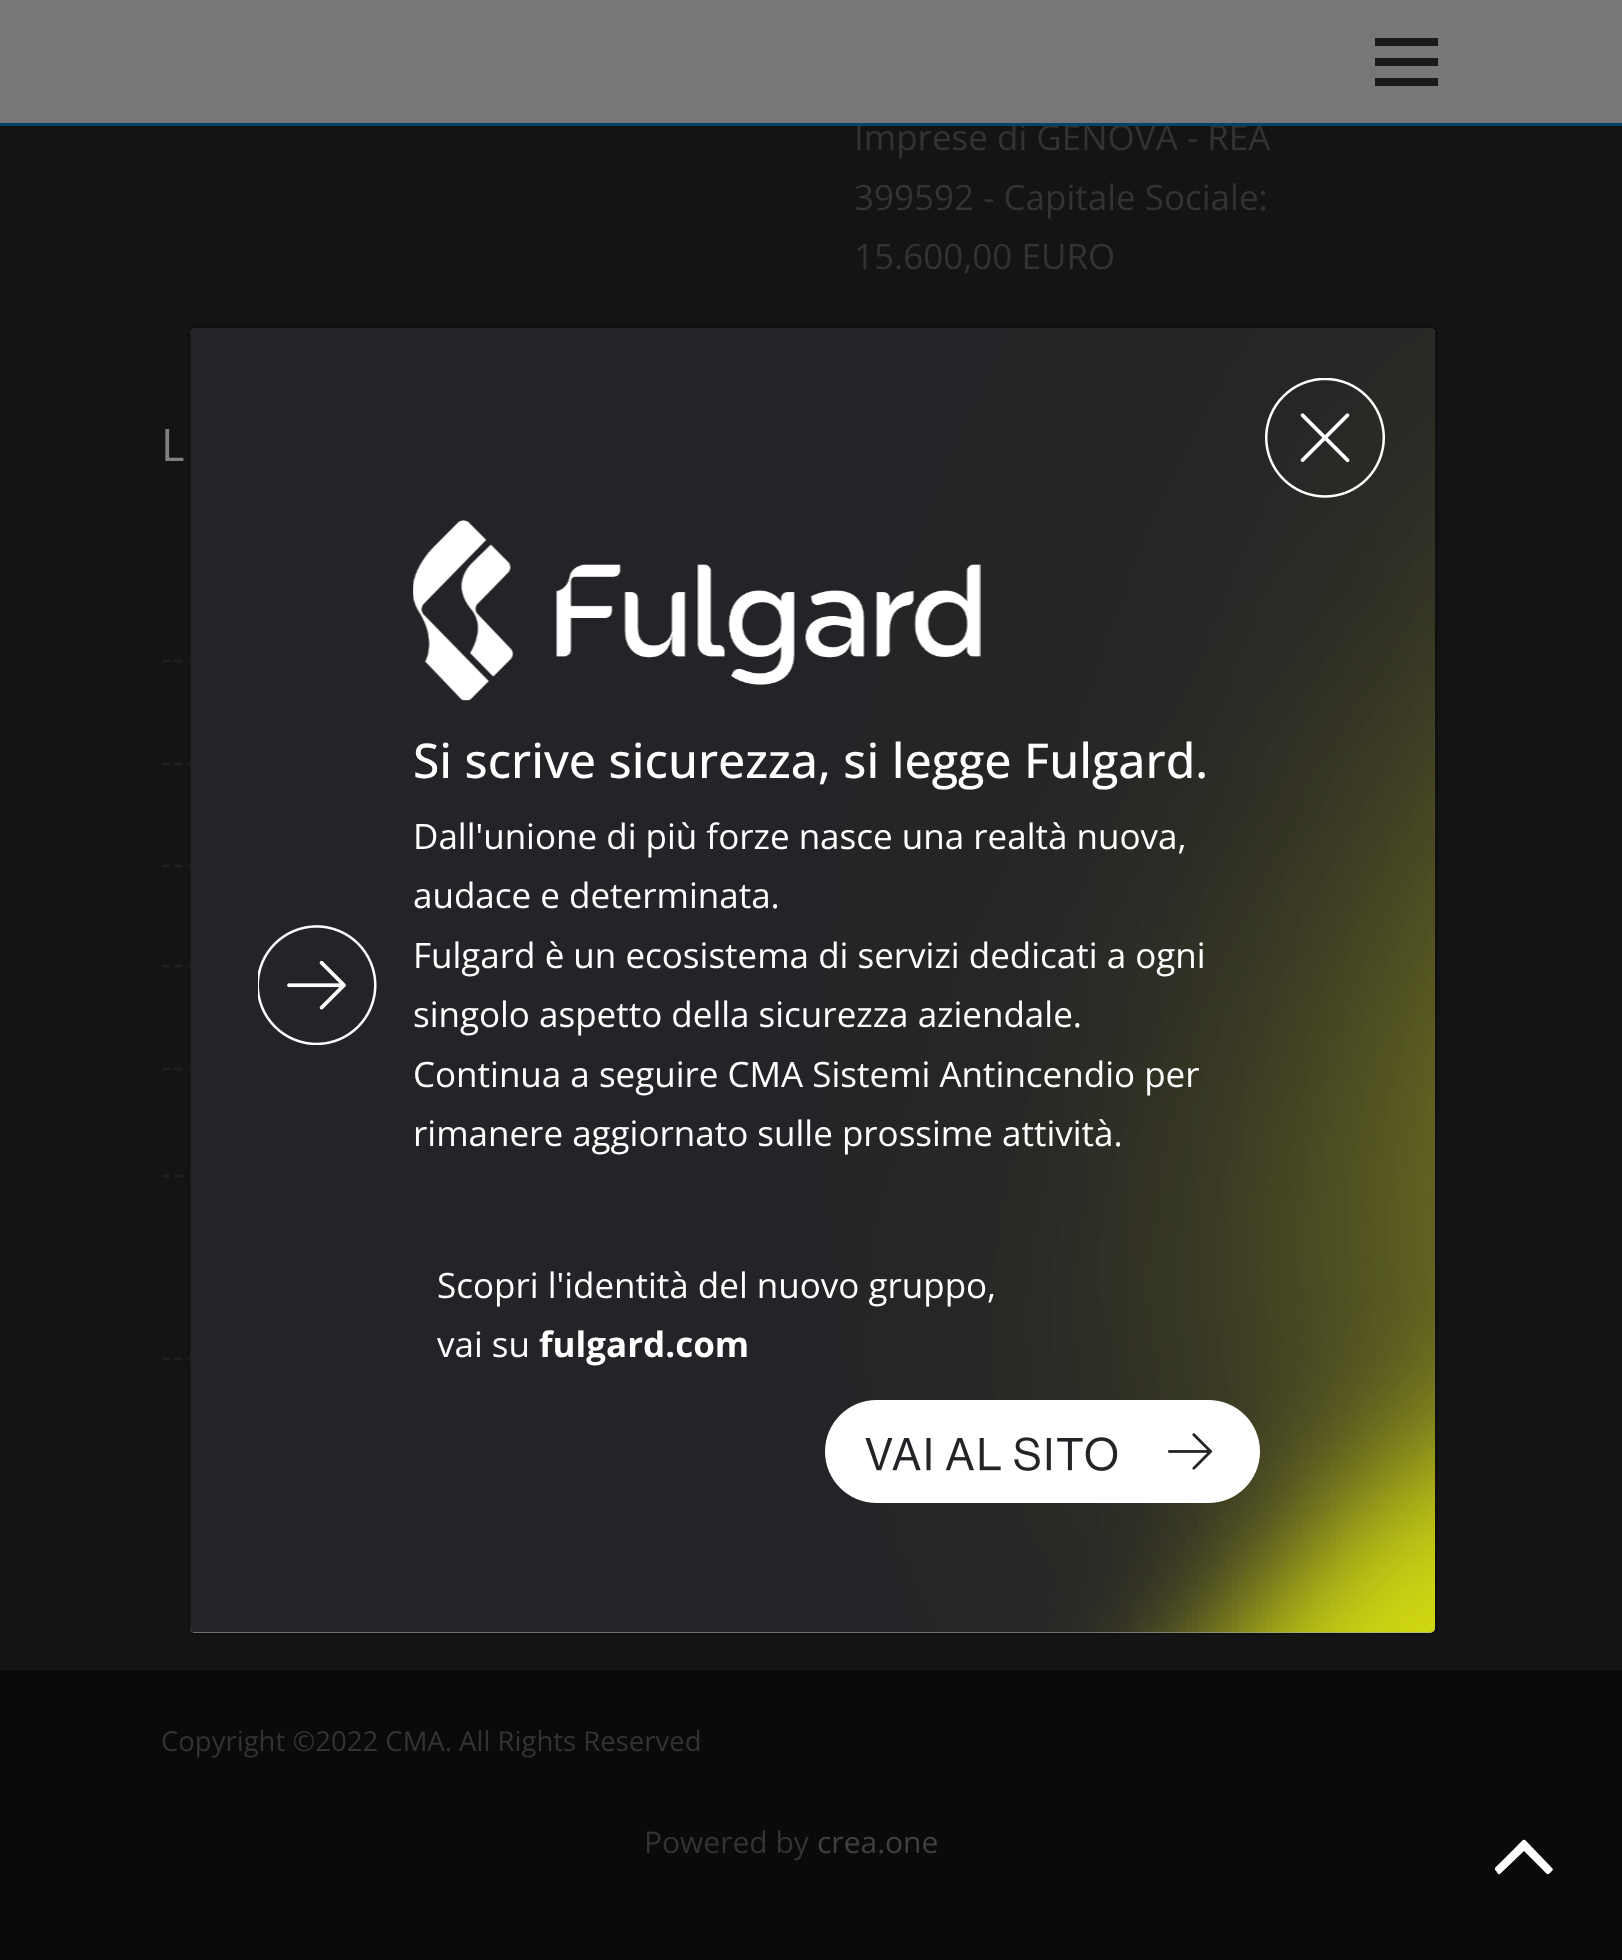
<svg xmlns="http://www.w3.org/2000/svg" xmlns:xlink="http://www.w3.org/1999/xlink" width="1622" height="1960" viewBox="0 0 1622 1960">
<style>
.cls-1{font:35px Open Sans;fill:#333333}
.cls-2{font:45px Open Sans;fill:#808080}
.cls-3{font:27.5px Open Sans;fill:#333333}
.cls-4{font:30px Open Sans;fill:#333333}
.cls-5{font:30px Open Sans;fill:#404040}
.cls-6{font:500 48px Open Sans;fill:#ffffff}
.cls-7{font:35px Open Sans;fill:#ffffff}
.cls-8{font:bold 35px Open Sans;fill:#ffffff}
</style>
<rect width="100%" height="100%" fill="#141414"/>
<rect fill="#777777" x="0" y="0" width="1622" height="123"/>
<rect fill="#1a1a1a" x="1375" y="38" width="63" height="8"/>
<rect fill="#1a1a1a" x="1375" y="58" width="63" height="8"/>
<rect fill="#1a1a1a" x="1375" y="78" width="63" height="8"/>
<path fill="none" stroke="#202020" stroke-width="2.5" stroke-dasharray="7.5 4.9" d="M162.5 661H752.5"/>
<path fill="none" stroke="#202020" stroke-width="2.5" stroke-dasharray="7.5 4.9" d="M162.5 764H752.5"/>
<path fill="none" stroke="#202020" stroke-width="2.5" stroke-dasharray="7.5 4.9" d="M162.5 866H752.5"/>
<path fill="none" stroke="#202020" stroke-width="2.5" stroke-dasharray="7.5 4.9" d="M162.5 966H752.5"/>
<path fill="none" stroke="#202020" stroke-width="2.5" stroke-dasharray="7.5 4.9" d="M162.5 1069H752.5"/>
<path fill="none" stroke="#202020" stroke-width="2.5" stroke-dasharray="7.5 4.9" d="M162.5 1176H752.5"/>
<path fill="none" stroke="#202020" stroke-width="2.5" stroke-dasharray="7.5 4.9" d="M162.5 1359H752.5"/>
<rect fill="#0a0a0a" x="0" y="1670" width="1622" height="290"/>
<rect fill="#ffffff" x="190" y="328" width="1245" height="1305" rx="5"/>
<image xlink:href="image0.png" x="190" y="328" width="1245" height="1305"/>
<rect fill="none" stroke="#000000" stroke-opacity="0.2" stroke-width="3" x="189.5" y="326.5" width="1247" height="1307" rx="6.5"/>
<image xlink:href="image1.png" x="1265" y="378" width="120" height="120"/>
<image xlink:href="image2.png" x="413" y="520" width="568" height="181"/>
<image xlink:href="image3.png" x="258" y="925" width="119" height="120"/>
<image xlink:href="image4.png" x="825" y="1400" width="435" height="103"/>
<path fill="#ffffff" d="M1552 1868C1554 1870 1552 1871 1551 1872C1547 1876 1547 1874 1543 1870L1524 1851L1500 1874C1499 1875 1497 1873 1497 1872C1493 1868 1495 1868 1500 1863L1518 1845C1525 1838 1523 1838 1530 1845Z"/>
<text class="cls-1" x="854" y="150">Imprese di GENOVA - REA</text>
<rect fill="#004466" x="0" y="123" width="1622" height="3"/>
<text class="cls-1"><tspan x="854" y="210">399592 - Capitale Sociale:</tspan><tspan x="854" y="269">15.600,00 EURO</tspan></text>
<text class="cls-2" x="161" y="461">L</text>
<text class="cls-3" x="161" y="1751">Copyright ©2022 CMA. All Rights Reserved</text>
<text class="cls-4" x="644" y="1853">Powered by</text>
<text class="cls-5" x="817" y="1853">crea.one</text>
<text class="cls-6" x="413" y="778">Si scrive sicurezza, si legge Fulgard.</text>
<text class="cls-7"><tspan x="413" y="849">Dall'unione di più forze nasce una realtà nuova,</tspan><tspan x="413" y="908">audace e determinata.</tspan><tspan x="413" y="968">Fulgard è un ecosistema di servizi dedicati a ogni</tspan><tspan x="413" y="1027">singolo aspetto della sicurezza aziendale.</tspan><tspan x="413" y="1087">Continua a seguire CMA Sistemi Antincendio per</tspan><tspan x="413" y="1146">rimanere aggiornato sulle prossime attività.</tspan></text>
<text class="cls-7"><tspan x="437" y="1298">Scopri l'identità del nuovo gruppo,</tspan><tspan x="437" y="1357">vai su</tspan></text>
<text class="cls-8" x="539" y="1357">fulgard.com</text>
</svg>
